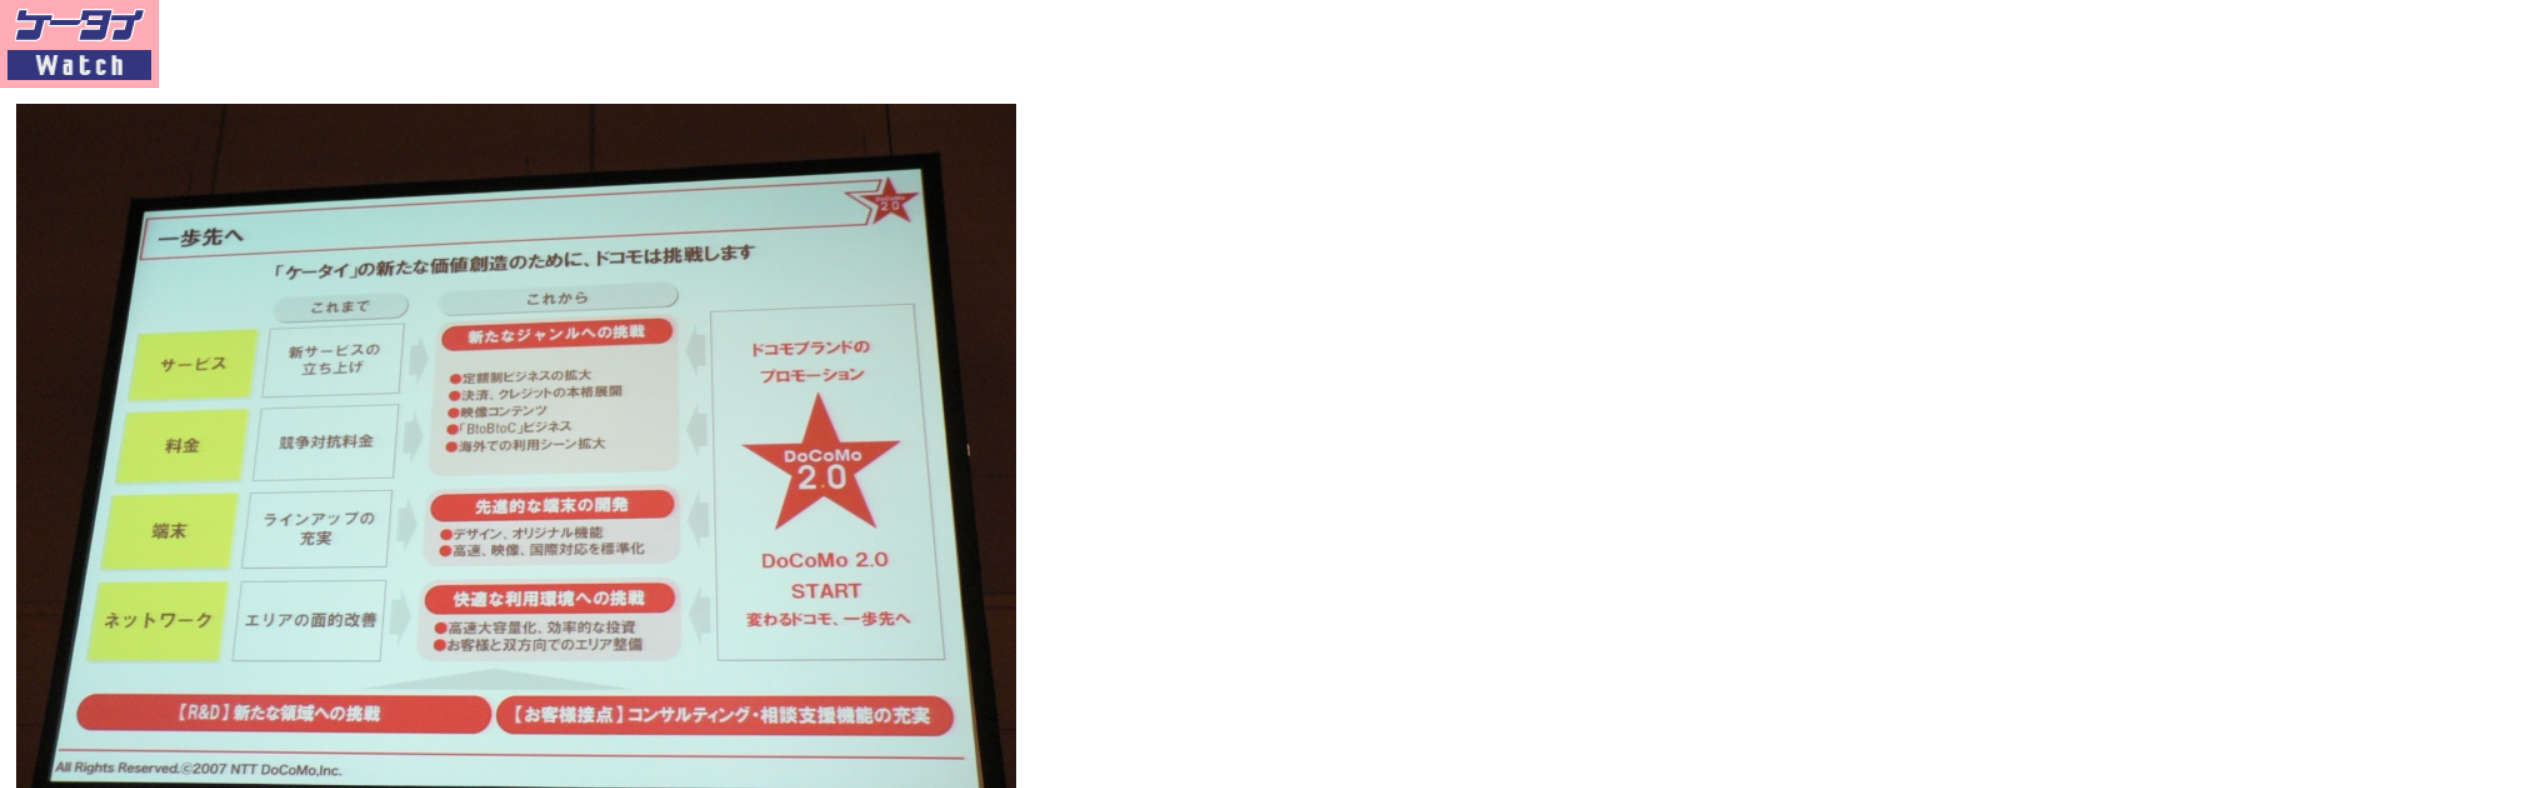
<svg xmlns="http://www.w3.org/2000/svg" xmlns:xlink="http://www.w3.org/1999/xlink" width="2534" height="788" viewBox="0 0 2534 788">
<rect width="100%" height="100%" fill="#ffffff"/>
<rect fill="#ffacb7" x="0" y="0" width="159" height="88"/>
<image xlink:href="image0.png" x="7" y="6" width="145" height="75"/>
<image xlink:href="image1.png" x="16" y="103" width="1001" height="685"/>
</svg>
